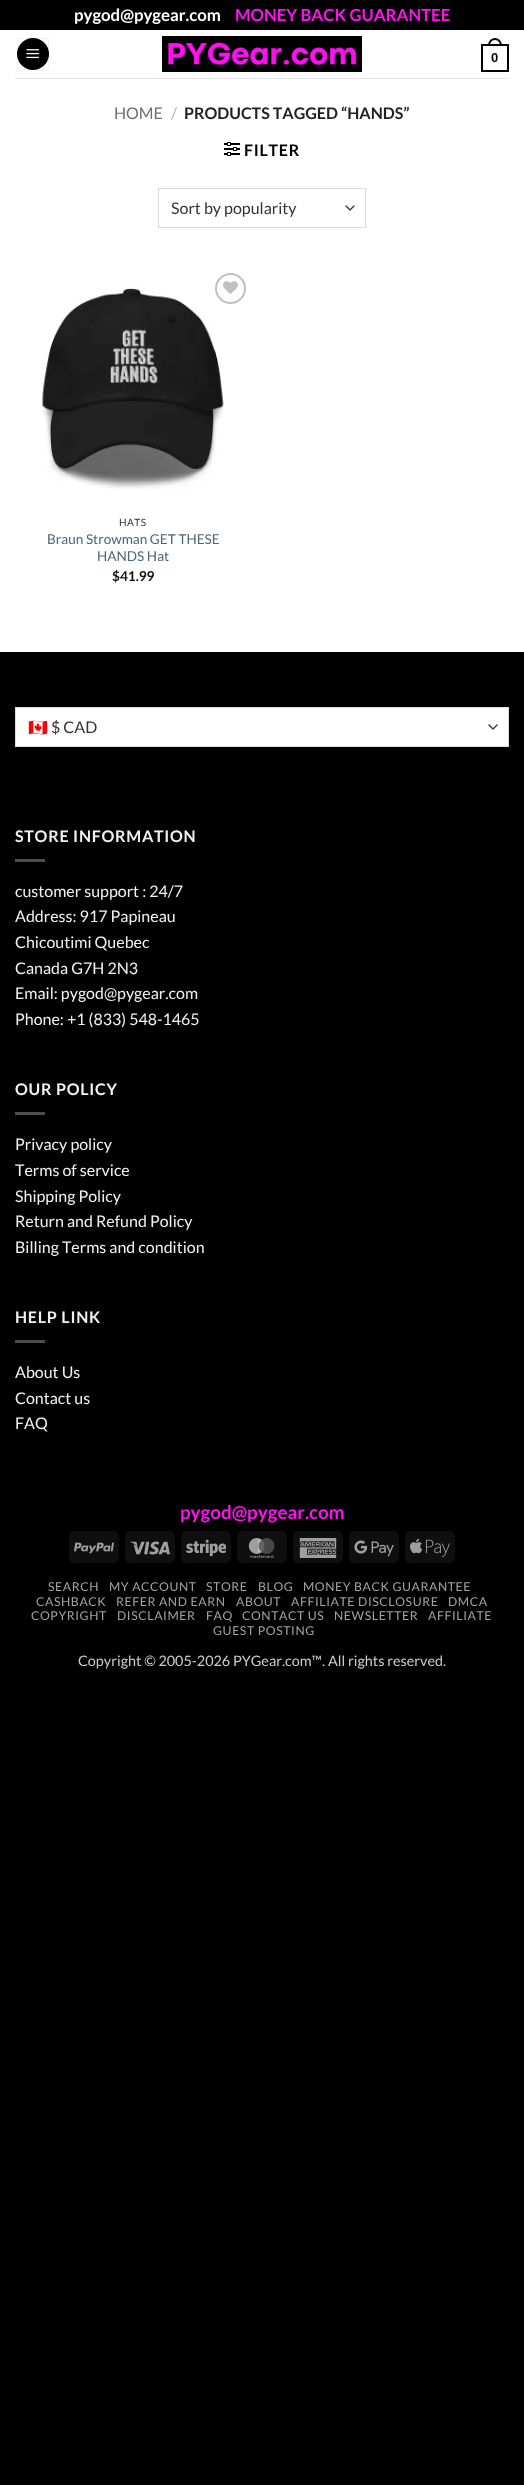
<svg xmlns="http://www.w3.org/2000/svg" xmlns:xlink="http://www.w3.org/1999/xlink" width="524" height="2485" viewBox="0 0 524 2485">
<style>*{font-kerning:none!important;font-variant-ligatures:none!important}</style>
<style>
.cls-1{font:bold 16.75px Lato;fill:#ffffff}
.cls-2{font:bold 16.75px Lato;fill:#ff10f0}
.cls-3{font:bold 13px Liberation Sans;fill:#000000}
.cls-4{font:16px Lato;fill:#6e6e6e}
.cls-5{font:16px Lato;fill:#b2b2b2}
.cls-6{font:bold 16px Lato;fill:#222222}
.cls-7{font:bold 16px Lato;letter-spacing:0.75px;fill:#000000}
.cls-8{font:16px Lato;fill:#333333}
.cls-9{font:10px Lato;letter-spacing:0.5px;fill:#333333}
.cls-10{font:13.6px Lato;fill:#4e657b}
.cls-11{font:bold 13.6px Lato;fill:#111111}
.cls-12{font:16px Noto Color Emoji;fill:#333333}
.cls-13{font:bold 16px Lato;letter-spacing:0.75px;fill:#f1f1f1}
.cls-14{font:16px Lato;fill:#f1f1f1}
.cls-15{font:bold 18.75px Lato;fill:#ff10f0}
.cls-16{font:12.25px Lato;letter-spacing:0.6px;fill:#a3a3a3}
.cls-17{font:14.4px Lato;fill:#cccccc}
</style>
<rect width="100%" height="100%" fill="#000000"/>
<rect fill="#ffffff" x="0" y="30" width="524" height="622"/>
<circle fill="#000000" cx="33" cy="54" r="16"/>
<rect fill="none" stroke="#000000" stroke-opacity="0.05" x="17.5" y="38.5" width="31" height="31"/>
<image xlink:href="image0.png" x="26" y="49" width="13" height="10"/>
<image xlink:href="image1.png" x="162" y="36" width="200" height="36"/>
<rect fill="none" stroke="#000000" stroke-width="2" x="482" y="45" width="26" height="26"/>
<path fill="#000000" fill-rule="evenodd" d="M495 38C499.5 38 502 42 502 46H488C488 42 490.5 38 495 38ZM495 40C498.5 40 500 43 500 46H490C490 43 491.5 40 495 40Z"/>
<rect fill="#e6e6e6" x="15" y="78" width="494" height="1"/>
<image xlink:href="image2.png" x="224" y="142" width="16" height="14"/>
<path fill="none" stroke="#333333" stroke-width="1.3" stroke-linecap="round" stroke-linejoin="round" d="M346 206L350 210L354 206"/>
<rect fill="none" stroke="#dddddd" x="158.5" y="188.5" width="207" height="39"/>
<image xlink:href="image3.png" x="42" y="287" width="182" height="203"/>
<circle fill="none" stroke="#c0c0c0" stroke-width="2" cx="230.5" cy="288.5" r="14.5"/>
<image xlink:href="image4.png" x="223" y="281" width="15" height="13"/>
<rect fill="#ffffff" x="16" y="708" width="492" height="38"/>
<path fill="none" stroke="#333333" stroke-width="1.3" stroke-linecap="round" stroke-linejoin="round" d="M489 725L493 729L497 725"/>
<rect fill="none" stroke="#dddddd" x="15.5" y="707.5" width="493" height="39"/>
<rect fill="#4d4d4d" x="15" y="859" width="30" height="3"/>
<rect fill="#4d4d4d" x="15" y="1112" width="30" height="3"/>
<rect fill="#4d4d4d" x="15" y="1340" width="30" height="3"/>
<rect fill="#0f0f0f" x="69" y="1531" width="50" height="32" rx="5"/>
<image xlink:href="image5.png" x="74" y="1542" width="40" height="12"/>
<rect fill="#0f0f0f" x="125" y="1531" width="50" height="32" rx="5"/>
<image xlink:href="image6.png" x="130" y="1541" width="40" height="14"/>
<rect fill="#0f0f0f" x="181" y="1531" width="50" height="32" rx="5"/>
<image xlink:href="image7.png" x="186" y="1539" width="40" height="18"/>
<rect fill="#0f0f0f" x="237" y="1531" width="50" height="32" rx="5"/>
<image xlink:href="image8.png" x="248" y="1538" width="27" height="20"/>
<rect fill="#0f0f0f" x="293" y="1531" width="50" height="32" rx="5"/>
<image xlink:href="image9.png" x="299" y="1538" width="38" height="20"/>
<rect fill="#0f0f0f" x="349" y="1531" width="50" height="32" rx="5"/>
<image xlink:href="image10.png" x="354" y="1540" width="40" height="17"/>
<rect fill="#0f0f0f" x="405" y="1531" width="50" height="32" rx="5"/>
<image xlink:href="image11.png" x="410" y="1538" width="40" height="20"/>
<text class="cls-1" x="74" y="21">pygod@pygear.com</text>
<text class="cls-2" x="235" y="21">MONEY BACK GUARANTEE</text>
<text class="cls-3" x="491" y="62">0</text>
<text class="cls-4" x="114" y="119">HOME</text>
<text class="cls-5" x="171" y="119">/</text>
<text class="cls-6" x="184" y="119">PRODUCTS TAGGED “HANDS”</text>
<text class="cls-7" x="244" y="156">FILTER</text>
<text class="cls-8" x="171" y="214">Sort by popularity</text>
<text class="cls-9" x="119" y="526">HATS</text>
<text class="cls-10" x="47" y="544">Braun Strowman GET THESE</text>
<text class="cls-10" x="97" y="561">HANDS Hat</text>
<text class="cls-11" x="112" y="581">$41.99</text>
<text class="cls-12" x="28" y="733">🇨🇦</text>
<text class="cls-8" x="51" y="733">$ CAD</text>
<text class="cls-13" x="15" y="842">STORE INFORMATION</text>
<text class="cls-14"><tspan x="15" y="897">customer support : 24/7</tspan><tspan x="15" y="922">Address: 917 Papineau</tspan><tspan x="15" y="948">Chicoutimi Quebec</tspan><tspan x="15" y="974">Canada G7H 2N3</tspan><tspan x="15" y="999">Email: pygod@pygear.com</tspan><tspan x="15" y="1025">Phone: +1 (833) 548-1465</tspan></text>
<text class="cls-13" x="15" y="1095">OUR POLICY</text>
<text class="cls-14"><tspan x="15" y="1150">Privacy policy</tspan><tspan x="15" y="1176">Terms of service</tspan><tspan x="15" y="1202">Shipping Policy</tspan><tspan x="15" y="1227">Return and Refund Policy</tspan><tspan x="15" y="1253">Billing Terms and condition</tspan></text>
<text class="cls-13" x="15" y="1323">HELP LINK</text>
<text class="cls-14"><tspan x="15" y="1378">About Us</tspan><tspan x="15" y="1404">Contact us</tspan><tspan x="15" y="1429">FAQ</tspan></text>
<text class="cls-15" x="180" y="1519">pygod@pygear.com</text>
<text class="cls-16" x="48" y="1591">SEARCH</text>
<text class="cls-16" x="109" y="1591">MY ACCOUNT</text>
<text class="cls-16" x="206" y="1591">STORE</text>
<text class="cls-16" x="258" y="1591">BLOG</text>
<text class="cls-16" x="303" y="1591">MONEY BACK GUARANTEE</text>
<text class="cls-16" x="36" y="1606">CASHBACK</text>
<text class="cls-16" x="116" y="1606">REFER AND EARN</text>
<text class="cls-16" x="236" y="1606">ABOUT</text>
<text class="cls-16" x="291" y="1606">AFFILIATE DISCLOSURE</text>
<text class="cls-16" x="448" y="1606">DMCA</text>
<text class="cls-16" x="31" y="1620">COPYRIGHT</text>
<text class="cls-16" x="117" y="1620">DISCLAIMER</text>
<text class="cls-16" x="206" y="1620">FAQ</text>
<text class="cls-16" x="242" y="1620">CONTACT US</text>
<text class="cls-16" x="334" y="1620">NEWSLETTER</text>
<text class="cls-16" x="428" y="1620">AFFILIATE</text>
<text class="cls-16" x="213" y="1635">GUEST POSTING</text>
<text class="cls-17" x="78" y="1666">Copyright © 2005-2026 PYGear.com™.</text>
<text class="cls-17" x="328" y="1666">All rights reserved.</text>
</svg>
